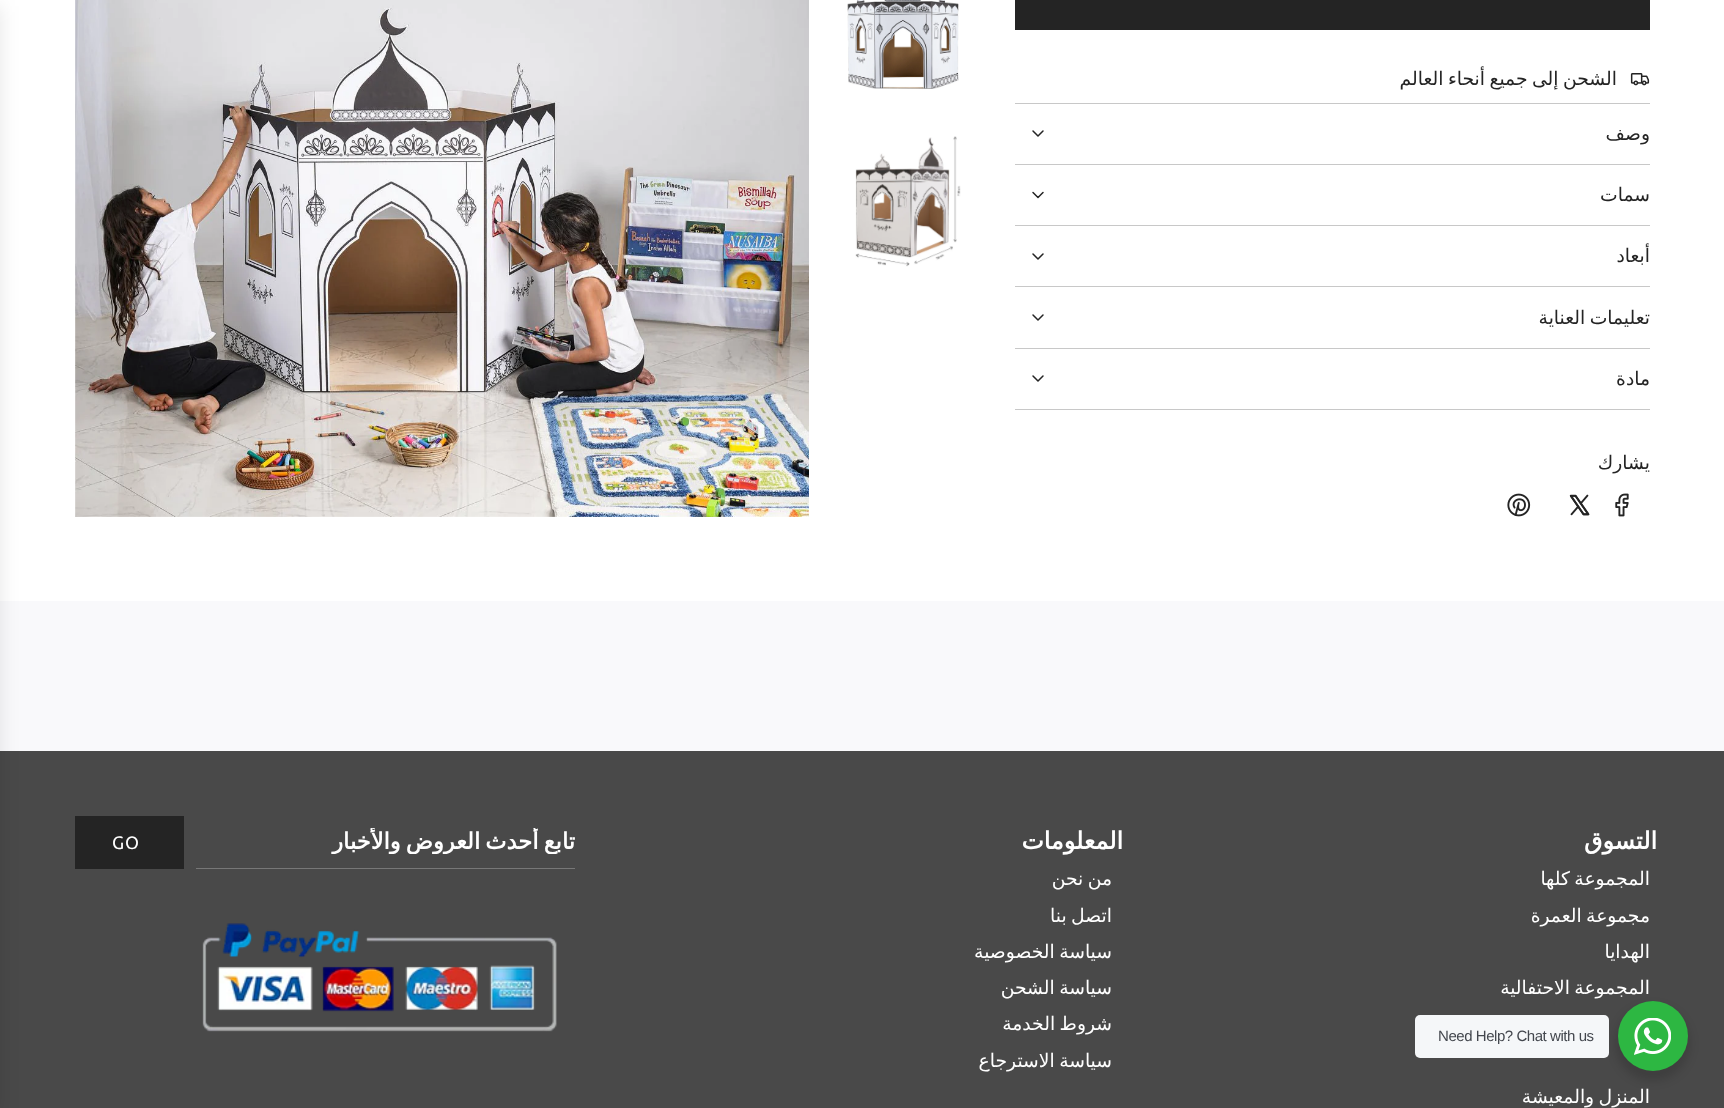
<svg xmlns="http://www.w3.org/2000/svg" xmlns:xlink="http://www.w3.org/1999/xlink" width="1724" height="1108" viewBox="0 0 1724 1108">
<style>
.cls-1{font:18.75px DejaVu Sans;direction:rtl;fill:#242424}
.cls-2{font:bold 23.75px DejaVu Sans;letter-spacing:1.25px;direction:rtl;fill:#ffffff}
.cls-3{font:18.75px DejaVu Sans;direction:rtl;fill:#ffffff}
.cls-4{font:bold 22.5px DejaVu Sans;direction:rtl;fill:#ffffff}
.cls-5{font:18px Ubuntu;letter-spacing:1px;fill:#ffffff}
.cls-6{font:15px Liberation Sans;letter-spacing:-0.45px;fill:#43474e}
</style>
<defs>
<clipPath id="clip1"><rect x="196" y="828" width="379" height="26"/></clipPath>
</defs>
<rect width="100%" height="100%" fill="#ffffff"/>
<rect fill="#242424" x="1015" y="0" width="635" height="30"/>
<image xlink:href="image0.png" x="1630" y="73" width="20" height="13"/>
<rect fill="#c8c8c8" x="1015" y="103" width="635" height="1"/>
<rect fill="#c8c8c8" x="1015" y="164" width="635" height="1"/>
<path fill="none" stroke="#242424" stroke-width="1.5" stroke-linecap="round" stroke-linejoin="round" d="M1033 131L1038 136L1043 131"/>
<rect fill="#c8c8c8" x="1015" y="225" width="635" height="1"/>
<path fill="none" stroke="#242424" stroke-width="1.5" stroke-linecap="round" stroke-linejoin="round" d="M1033 192.5L1038 197.5L1043 192.5"/>
<rect fill="#c8c8c8" x="1015" y="286" width="635" height="1"/>
<path fill="none" stroke="#242424" stroke-width="1.5" stroke-linecap="round" stroke-linejoin="round" d="M1033 254L1038 259L1043 254"/>
<rect fill="#c8c8c8" x="1015" y="348" width="635" height="1"/>
<path fill="none" stroke="#242424" stroke-width="1.5" stroke-linecap="round" stroke-linejoin="round" d="M1033 315L1038 320L1043 315"/>
<rect fill="#c8c8c8" x="1015" y="409" width="635" height="1"/>
<path fill="none" stroke="#242424" stroke-width="1.5" stroke-linecap="round" stroke-linejoin="round" d="M1033 376L1038 381L1043 376"/>
<image xlink:href="image1.png" x="1615" y="493" width="14" height="24"/>
<image xlink:href="image2.png" x="1569" y="494" width="21" height="22"/>
<image xlink:href="image3.png" x="1507" y="493" width="24" height="24"/>
<image xlink:href="image4.png" x="847" y="0" width="112" height="89"/>
<image xlink:href="image5.png" x="855" y="136" width="106" height="131"/>
<image xlink:href="image6.png" x="75" y="0" width="734" height="517"/>
<image xlink:href="image7.png" x="75" y="0" width="1" height="517"/>
<rect fill="#f9f9fb" x="0" y="601" width="1724" height="150"/>
<rect fill="#494949" x="0" y="751" width="1724" height="357"/>
<rect fill="#000000" fill-opacity="0.1" filter="blur(9.5px)" x="-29" y="6" width="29" height="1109"/>
<rect fill="#777777" x="196" y="868" width="379" height="1"/>
<rect fill="#242424" x="75" y="816" width="109" height="53"/>
<image xlink:href="image8.png" x="202" y="923" width="355" height="109"/>
<rect fill="#000000" fill-opacity="0.14" filter="blur(5px)" x="1615" y="1006" width="75" height="75" rx="37.5"/>
<circle fill="#2db742" cx="1653" cy="1036" r="35"/>
<image xlink:href="image9.png" x="1634" y="1018" width="37" height="37"/>
<rect fill="#f5f7f9" x="1415" y="1015" width="194" height="43" rx="5"/>
<text class="cls-1" x="1617" y="85" word-spacing="-1.5">الشحن إلى جميع أنحاء العالم</text>
<text class="cls-1" x="1650" y="140">وصف</text>
<text class="cls-1" x="1650" y="201">سمات</text>
<text class="cls-1" x="1650" y="262">أبعاد</text>
<text class="cls-1" x="1650" y="324" word-spacing="-1.5">تعليمات العناية</text>
<text class="cls-1" x="1650" y="385">مادة</text>
<text class="cls-1" x="1650" y="469">يشارك</text>
<text class="cls-2" x="1657" y="849">التسوق</text>
<text class="cls-3"><tspan x="1650" y="885" word-spacing="-1.5">المجموعة كلها</tspan><tspan x="1650" y="922" word-spacing="-1.5">مجموعة العمرة</tspan><tspan x="1650" y="958">الهدايا</tspan><tspan x="1650" y="994" word-spacing="-1.5">المجموعة الاحتفالية</tspan></text>
<text class="cls-3" x="1650" y="1103" word-spacing="-1.5">المنزل والمعيشة</text>
<text class="cls-2" x="1123" y="849">المعلومات</text>
<text class="cls-3"><tspan x="1112" y="885" word-spacing="-1.5">من نحن</tspan><tspan x="1112" y="922" word-spacing="-1.5">اتصل بنا</tspan><tspan x="1112" y="958" word-spacing="-1.5">سياسة الخصوصية</tspan><tspan x="1112" y="994" word-spacing="-1.5">سياسة الشحن</tspan><tspan x="1112" y="1030" word-spacing="-1.5">شروط الخدمة</tspan><tspan x="1112" y="1067" word-spacing="-1.5">سياسة الاسترجاع</tspan></text>
<g clip-path="url(#clip1)">
<text class="cls-4" x="575" y="849" word-spacing="-2">تابع أحدث العروض والأخبار</text>
</g>
<text class="cls-5" x="112" y="849">GO</text>
<text class="cls-6" x="1438" y="1041">Need Help? Chat with us</text>
</svg>
